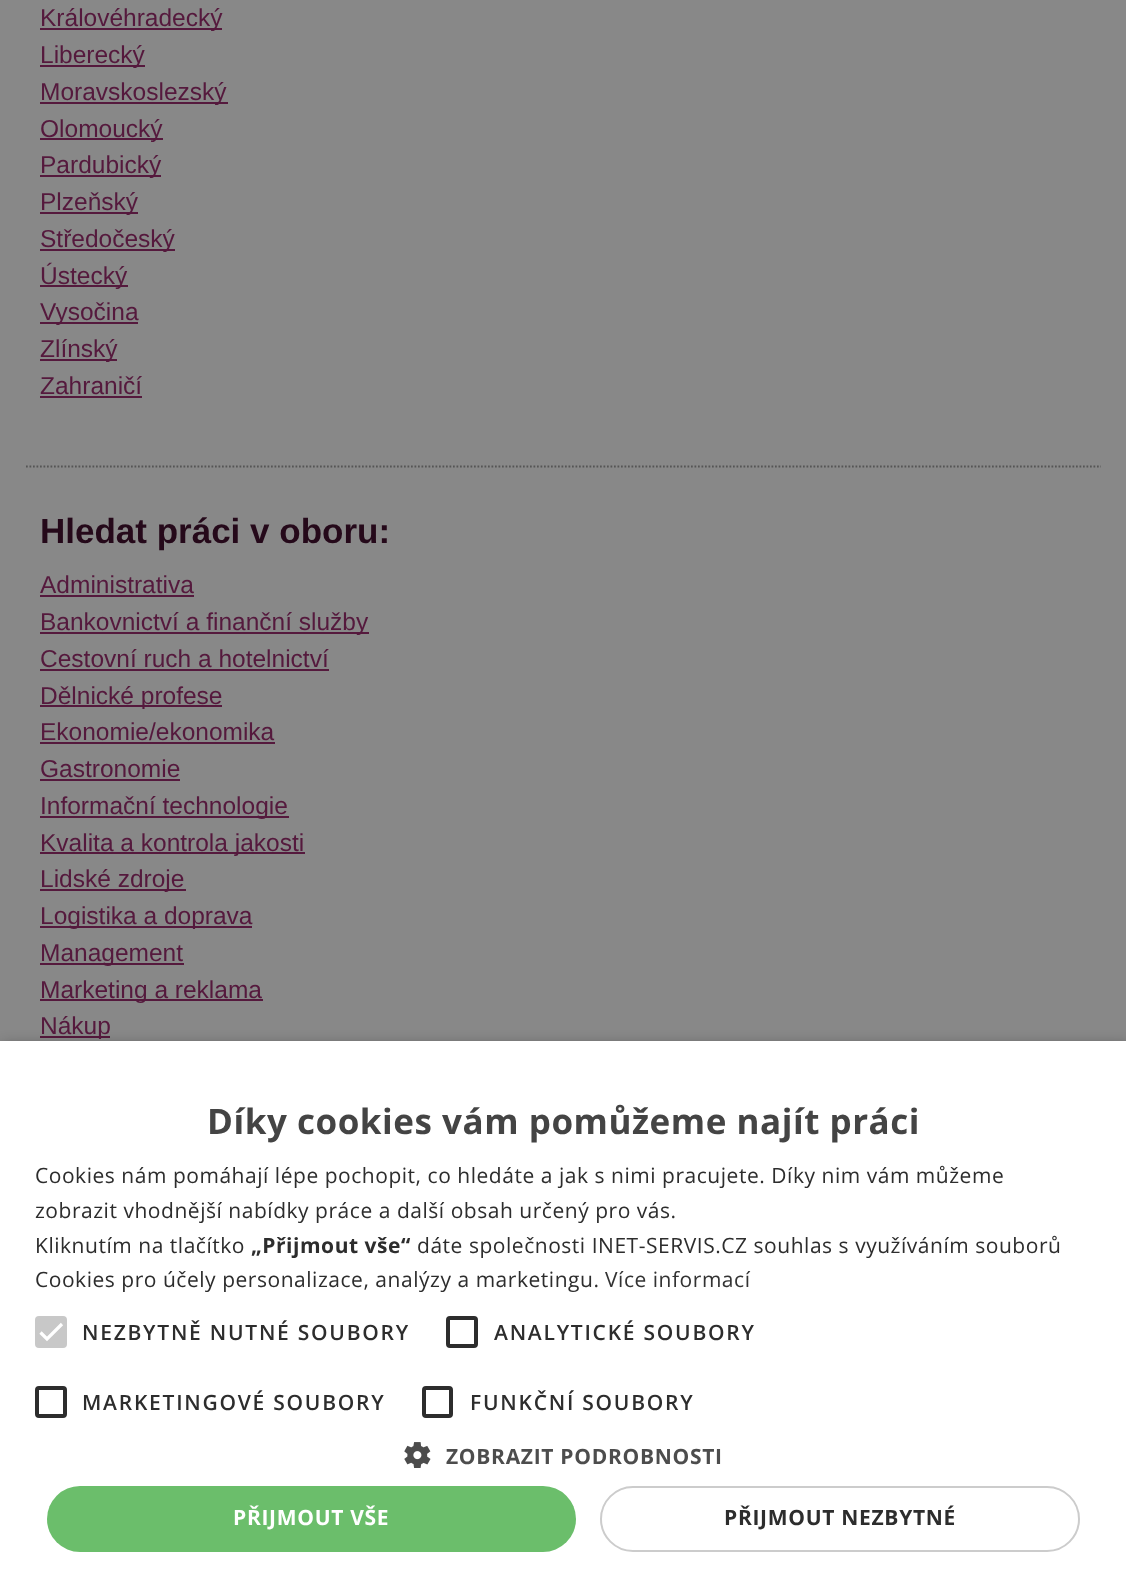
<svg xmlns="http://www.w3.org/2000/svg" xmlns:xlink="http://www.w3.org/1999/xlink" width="1126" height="1586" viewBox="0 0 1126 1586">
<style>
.cls-1{font:24.5px Liberation Sans;fill:#55193d}
.cls-2{font:bold 35px Liberation Sans;fill:#25091a}
.cls-3{font:bold 35px Open Sans;letter-spacing:0.53px;fill:#444444}
.cls-4{font:21px Open Sans;letter-spacing:0.53px;fill:#2d2d2d}
.cls-5{font:bold 21px Open Sans;letter-spacing:0.53px;fill:#2d2d2d}
.cls-6{font:21px Open Sans;letter-spacing:0.53px;fill:#333333}
.cls-7{font:600 21px Open Sans;letter-spacing:1.75px;fill:#2d2d2d}
.cls-8{font:bold 21px Open Sans;letter-spacing:0.7px;fill:#4d4d4d}
.cls-9{font:bold 21px Open Sans;letter-spacing:0.7px;fill:#ffffff}
.cls-10{font:bold 21px Open Sans;letter-spacing:0.7px;fill:#2d2d2d}
</style>
<rect width="100%" height="100%" fill="#888888"/>
<path fill="none" stroke="#555555" stroke-width="1.8" stroke-dasharray="1.75 1.75" d="M26 466.5H1101"/>
<rect fill="#55193d" x="40" y="28" width="182" height="2"/>
<rect fill="#55193d" x="40" y="65" width="105" height="2"/>
<rect fill="#55193d" x="40" y="102" width="188" height="2"/>
<rect fill="#55193d" x="40" y="138" width="123" height="2"/>
<rect fill="#55193d" x="40" y="175" width="121" height="2"/>
<rect fill="#55193d" x="40" y="212" width="98" height="2"/>
<rect fill="#55193d" x="40" y="249" width="135" height="2"/>
<rect fill="#55193d" x="40" y="285" width="88" height="2"/>
<rect fill="#55193d" x="40" y="322" width="98" height="2"/>
<rect fill="#55193d" x="40" y="359" width="77" height="2"/>
<rect fill="#55193d" x="40" y="396" width="102" height="2"/>
<rect fill="#55193d" x="40" y="595" width="154" height="2"/>
<rect fill="#55193d" x="40" y="632" width="329" height="2"/>
<rect fill="#55193d" x="40" y="669" width="289" height="2"/>
<rect fill="#55193d" x="40" y="705" width="182" height="2"/>
<rect fill="#55193d" x="40" y="742" width="235" height="2"/>
<rect fill="#55193d" x="40" y="779" width="140" height="2"/>
<rect fill="#55193d" x="40" y="816" width="249" height="2"/>
<rect fill="#55193d" x="40" y="852" width="265" height="2"/>
<rect fill="#55193d" x="40" y="889" width="146" height="2"/>
<rect fill="#55193d" x="40" y="926" width="212" height="2"/>
<rect fill="#55193d" x="40" y="963" width="144" height="2"/>
<rect fill="#55193d" x="40" y="999" width="223" height="2"/>
<rect fill="#55193d" x="40" y="1036" width="70" height="2"/>
<rect fill="#000000" fill-opacity="0.35" filter="blur(7px)" x="2" y="1045" width="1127" height="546"/>
<rect fill="#ffffff" x="0" y="1041" width="1126" height="545"/>
<rect fill="#c8c8c8" x="35" y="1316" width="32" height="32" rx="4"/>
<path fill="none" stroke="#ffffff" stroke-width="3.2" d="M40.5 1332.5L47 1339L62 1324"/>
<rect fill="none" stroke="#2d2d2d" stroke-width="4" x="448" y="1318" width="28" height="28" rx="2"/>
<rect fill="none" stroke="#2d2d2d" stroke-width="4" x="37" y="1388" width="28" height="28" rx="2"/>
<rect fill="none" stroke="#2d2d2d" stroke-width="4" x="424" y="1388" width="27" height="28" rx="2"/>
<image xlink:href="image0.png" x="404" y="1442" width="27" height="26"/>
<rect fill="#6bbe6b" x="47" y="1486" width="529" height="66" rx="33"/>
<rect fill="none" stroke="#cccccc" stroke-width="2" x="601" y="1487" width="478" height="64" rx="32"/>
<text class="cls-1"><tspan x="40" y="26">Královéhradecký</tspan><tspan x="40" y="63">Liberecký</tspan><tspan x="40" y="100">Moravskoslezský</tspan><tspan x="40" y="137">Olomoucký</tspan><tspan x="40" y="173">Pardubický</tspan><tspan x="40" y="210">Plzeňský</tspan><tspan x="40" y="247">Středočeský</tspan><tspan x="40" y="284">Ústecký</tspan><tspan x="40" y="320">Vysočina</tspan><tspan x="40" y="357">Zlínský</tspan><tspan x="40" y="394">Zahraničí</tspan></text>
<text class="cls-2" x="40" y="543">Hledat práci v oboru:</text>
<text class="cls-1"><tspan x="40" y="593">Administrativa</tspan><tspan x="40" y="630">Bankovnictví a finanční služby</tspan><tspan x="40" y="667">Cestovní ruch a hotelnictví</tspan><tspan x="40" y="704">Dělnické profese</tspan><tspan x="40" y="740">Ekonomie/ekonomika</tspan><tspan x="40" y="777">Gastronomie</tspan><tspan x="40" y="814">Informační technologie</tspan><tspan x="40" y="851">Kvalita a kontrola jakosti</tspan><tspan x="40" y="887">Lidské zdroje</tspan><tspan x="40" y="924">Logistika a doprava</tspan><tspan x="40" y="961">Management</tspan><tspan x="40" y="998">Marketing a reklama</tspan><tspan x="40" y="1034">Nákup</tspan></text>
<text class="cls-3" x="207" y="1134">Díky cookies vám pomůžeme najít práci</text>
<text class="cls-4"><tspan x="35" y="1183">Cookies nám pomáhají lépe pochopit, co hledáte a jak s nimi pracujete. Díky nim vám můžeme</tspan><tspan x="35" y="1218">zobrazit vhodnější nabídky práce a další obsah určený pro vás.</tspan><tspan x="35" y="1253">Kliknutím na tlačítko</tspan></text>
<text class="cls-5" x="251" y="1253">„Přijmout vše“</text>
<text class="cls-4" x="417" y="1253">dáte společnosti INET-SERVIS.CZ souhlas s využíváním souborů</text>
<text class="cls-4" x="35" y="1287">Cookies pro účely personalizace, analýzy a marketingu.</text>
<text class="cls-6" x="605" y="1287">Více informací</text>
<text class="cls-7" x="82" y="1340">NEZBYTNĚ NUTNÉ SOUBORY</text>
<text class="cls-7" x="494" y="1340">ANALYTICKÉ SOUBORY</text>
<text class="cls-7" x="82" y="1410">MARKETINGOVÉ SOUBORY</text>
<text class="cls-7" x="470" y="1410">FUNKČNÍ SOUBORY</text>
<text class="cls-8" x="446" y="1464">ZOBRAZIT PODROBNOSTI</text>
<text class="cls-9" x="233" y="1525">PŘIJMOUT VŠE</text>
<text class="cls-10" x="724" y="1525">PŘIJMOUT NEZBYTNÉ</text>
</svg>
